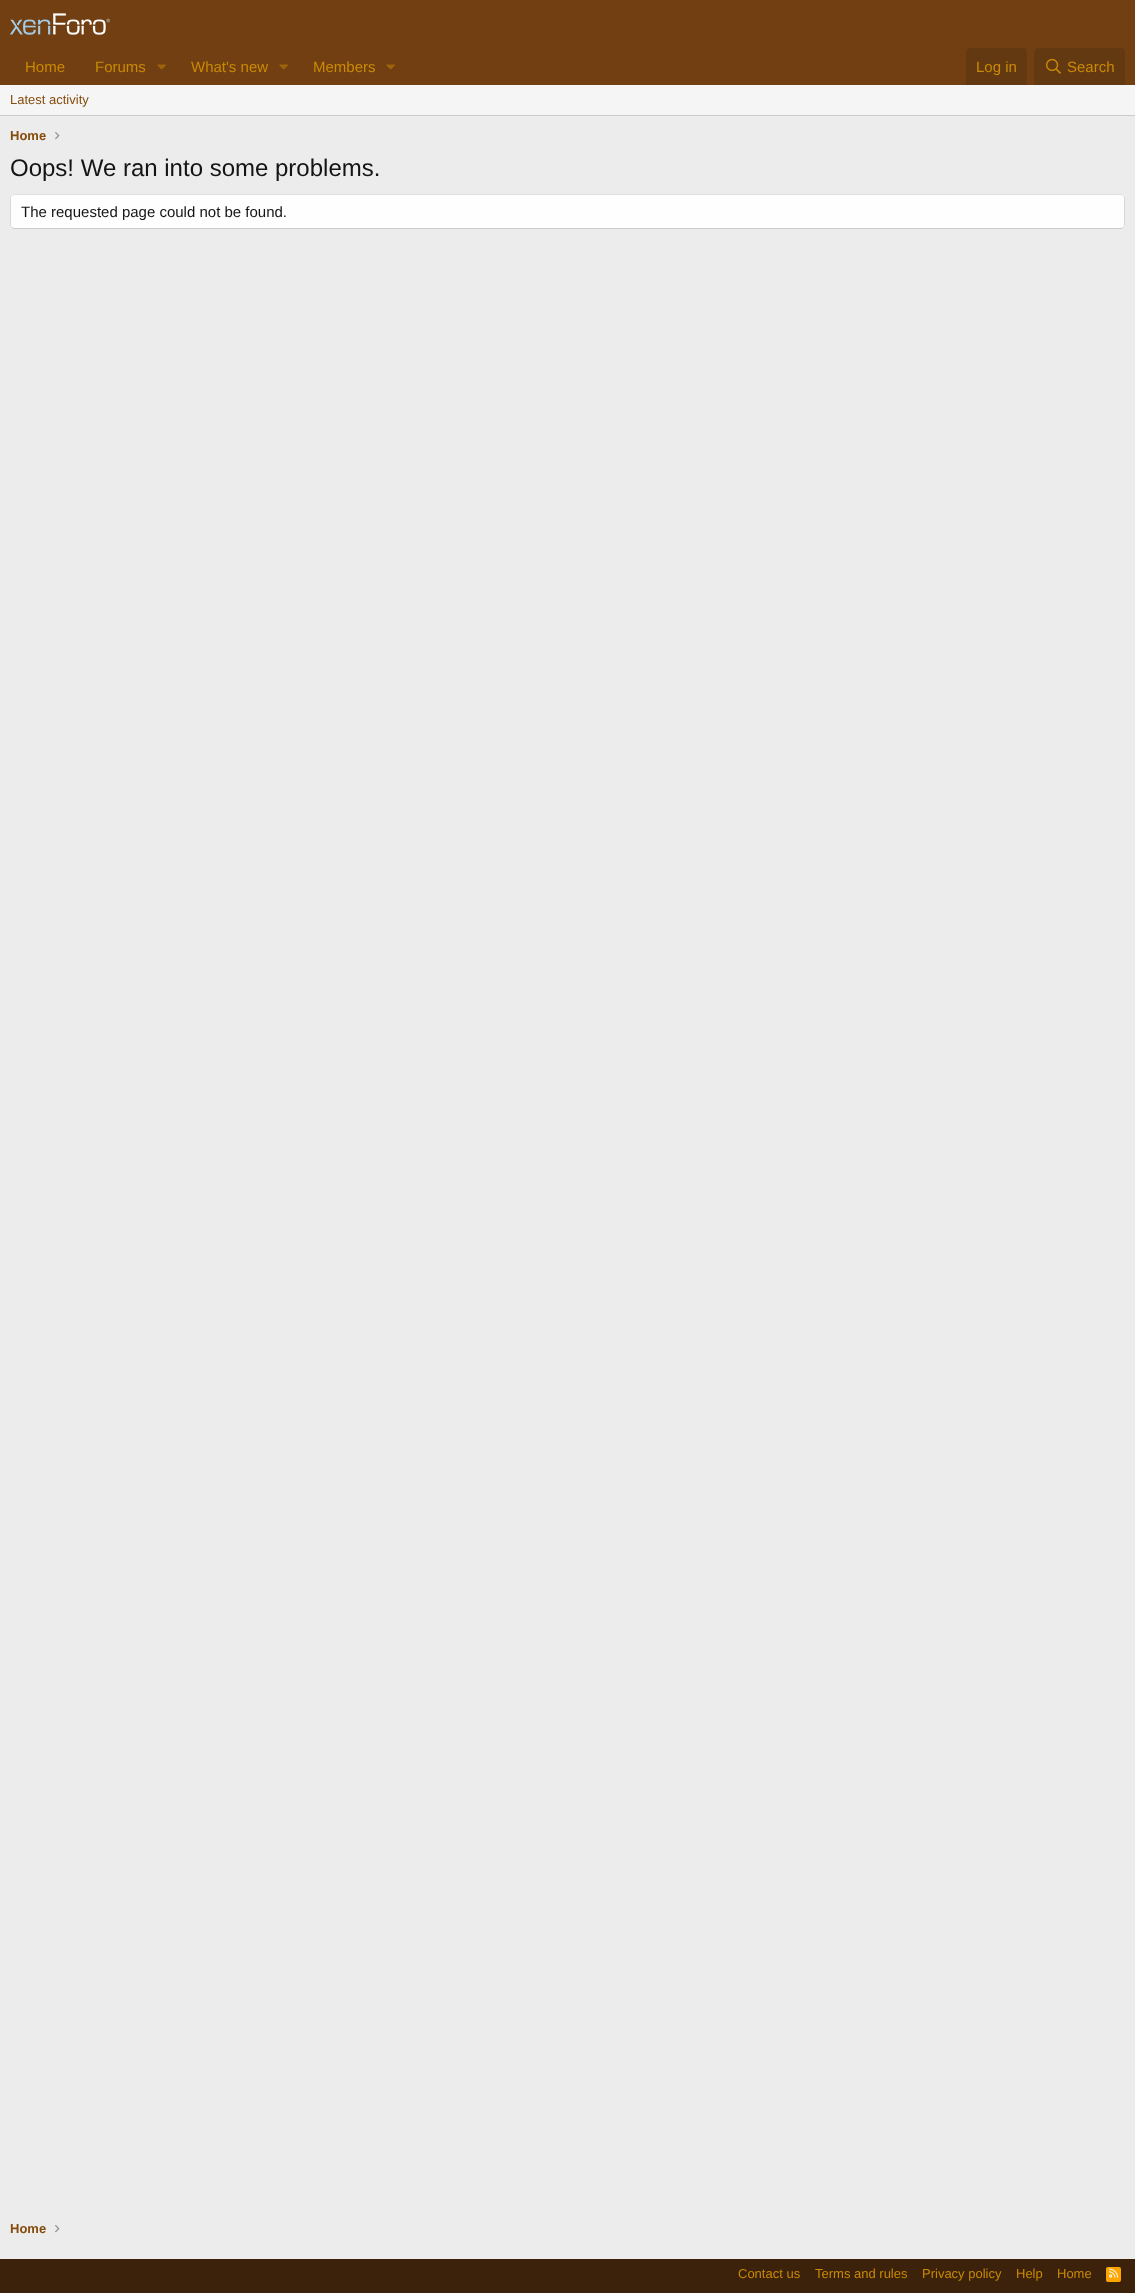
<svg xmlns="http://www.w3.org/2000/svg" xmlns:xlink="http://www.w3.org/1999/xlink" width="1135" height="2293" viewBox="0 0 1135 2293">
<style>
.cls-1{font:15px Liberation Sans;fill:#ca8a04}
.cls-2{font:13px Liberation Sans;fill:#854d0e}
.cls-3{font:bold 13px Liberation Sans;fill:#854d0e}
.cls-4{font:24px Liberation Sans;fill:#141414}
.cls-5{font:15px Liberation Sans;fill:#141414}
.cls-6{font:13px Liberation Sans;fill:#ca8a04}
</style>
<rect width="100%" height="100%" fill="#ececec"/>
<rect fill="#713f12" x="0" y="0" width="1135" height="85"/>
<image xlink:href="image0.png" x="10" y="13" width="100" height="22"/>
<image xlink:href="image1.png" x="157" y="64" width="9" height="6"/>
<image xlink:href="image1.png" x="279" y="64" width="9" height="6"/>
<image xlink:href="image1.png" x="386" y="64" width="9" height="6"/>
<path fill="#633912" d="M970 48H1023C1025 48 1027 50 1027 52V85H966V52C966 50 968 48 970 48Z"/>
<path fill="#633912" d="M1038 48H1121C1123 48 1125 50 1125 52V85H1034V52C1034 50 1036 48 1038 48Z"/>
<image xlink:href="image2.png" x="1046" y="58" width="15" height="16"/>
<rect fill="#f5f5f5" x="0" y="85" width="1135" height="30"/>
<rect fill="#cbcbcb" x="0" y="115" width="1135" height="1"/>
<image xlink:href="image3.png" x="55" y="132" width="5" height="8"/>
<rect fill="#fefefe" x="10" y="194" width="1115" height="35" rx="4"/>
<path fill="none" stroke="#dfdfdf" d="M11.5 195.5L14 194.5H1121L1123.5 195.5"/>
<path fill="none" stroke="#d8d8d8" d="M1123.5 195.5C1124 196 1124.5 197 1124.5 198V225C1124.5 226 1124 227 1123.5 227.5"/>
<path fill="none" stroke="#cbcbcb" d="M1123.5 227.5L1121 228.5H14L11.5 227.5"/>
<path fill="none" stroke="#d8d8d8" d="M11.5 227.5C11 227 10.5 226 10.5 225V198C10.5 197 11 196 11.5 195.5"/>
<image xlink:href="image3.png" x="55" y="2225" width="5" height="8"/>
<rect fill="#3c220a" x="0" y="2259" width="1135" height="34"/>
<rect fill="#ffa500" x="1106" y="2267" width="15" height="15" rx="2"/>
<image xlink:href="image4.png" x="1109" y="2268" width="10" height="10"/>
<text class="cls-1" x="25" y="72">Home</text>
<text class="cls-1" x="95" y="72">Forums</text>
<text class="cls-1" x="191" y="72">What's new</text>
<text class="cls-1" x="313" y="72">Members</text>
<text class="cls-1" x="976" y="72">Log in</text>
<text class="cls-1" x="1067" y="72">Search</text>
<text class="cls-2" x="10" y="104">Latest activity</text>
<text class="cls-3" x="10" y="140">Home</text>
<text class="cls-4" x="10" y="176">Oops! We ran into some problems.</text>
<text class="cls-5" x="21" y="217">The requested page could not be found.</text>
<text class="cls-3" x="10" y="2233">Home</text>
<text class="cls-6" x="738" y="2278">Contact us</text>
<text class="cls-6" x="815" y="2278">Terms and rules</text>
<text class="cls-6" x="922" y="2278">Privacy policy</text>
<text class="cls-6" x="1016" y="2278">Help</text>
<text class="cls-6" x="1057" y="2278">Home</text>
</svg>
